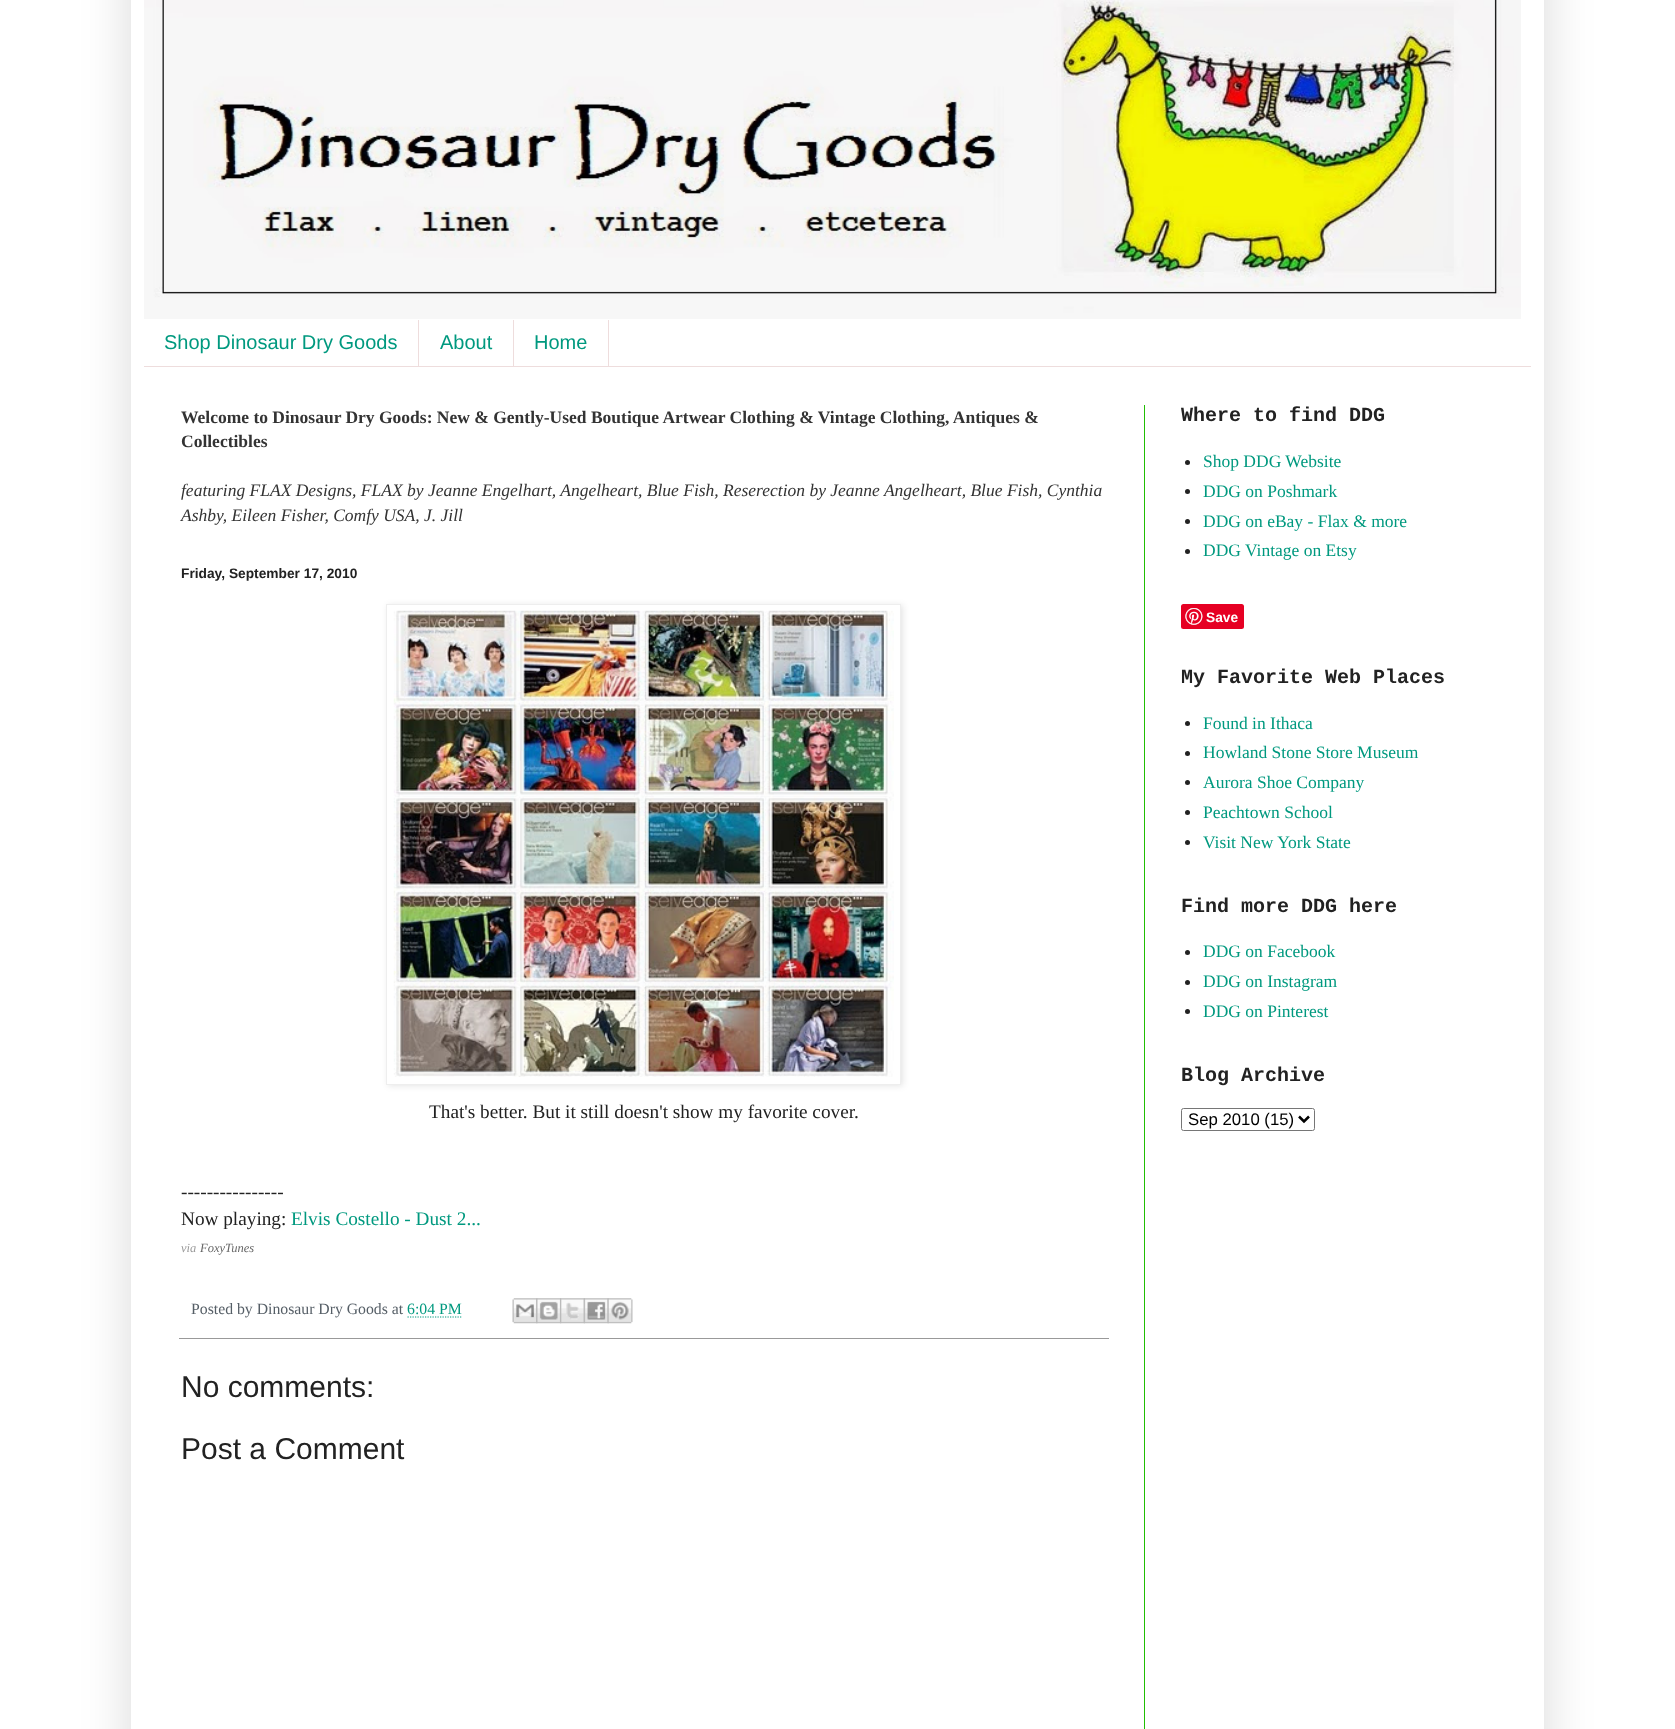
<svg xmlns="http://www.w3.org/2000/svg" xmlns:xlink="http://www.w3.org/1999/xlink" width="1675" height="1729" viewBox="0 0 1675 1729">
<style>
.cls-1{font:20px Liberation Sans;fill:#00997f}
.cls-2{font:bold 17.5px Liberation Serif;fill:#333333}
.cls-3{font:italic 17.5px Liberation Serif;fill:#333333}
.cls-4{font:bold 13.75px Liberation Sans;fill:#222222}
.cls-5{font:19.25px Liberation Serif;fill:#222222}
.cls-6{font:19.25px Liberation Serif;fill:#00997f}
.cls-7{font:italic 12.5px Liberation Serif;fill:#999999}
.cls-8{font:italic 12.5px Liberation Serif;fill:#666666}
.cls-9{font:15.75px Liberation Serif;fill:#555e66}
.cls-10{font:15.75px Liberation Serif;fill:#00997f}
.cls-11{font:30px Liberation Sans;fill:#222222}
.cls-12{font:bold 20px Liberation Mono;fill:#222222}
.cls-13{font:17.5px Liberation Serif;fill:#00997f}
.cls-14{font:bold 13.75px Liberation Sans;fill:#ffffff}
.cls-15{font:16.75px Liberation Sans;fill:#000000}
</style>
<rect width="100%" height="100%" fill="#ffffff"/>
<rect fill="#000000" fill-opacity="0.15" filter="blur(25px)" x="131" y="-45" width="1413" height="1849"/>
<rect fill="#ffffff" x="131" y="0" width="1413" height="1729"/>
<image xlink:href="image0.png" x="144" y="0" width="1377" height="319"/>
<rect fill="#eedddd" x="144" y="366" width="1387" height="1"/>
<rect fill="#eedddd" x="418" y="320" width="1" height="46"/>
<rect fill="#eedddd" x="513" y="320" width="1" height="46"/>
<rect fill="#eedddd" x="608" y="320" width="1" height="46"/>
<rect fill="#21bf03" x="1144" y="405" width="1" height="1324"/>
<rect fill="#000000" fill-opacity="0.1" filter="blur(3px)" x="388" y="605" width="515" height="481"/>
<rect fill="#ffffff" stroke="#eeeeee" x="386.5" y="604.5" width="514" height="480"/>
<image xlink:href="image1.png" x="393" y="610" width="501" height="467"/>
<rect fill="#999999" x="179" y="1338" width="930" height="1"/>
<path fill="none" stroke="#00997f" stroke-width="1.2" stroke-dasharray="1.25 1.25" d="M407.5 1317H462"/>
<image xlink:href="image2.png" x="512" y="1298" width="26" height="26"/>
<image xlink:href="image3.png" x="536" y="1298" width="26" height="26"/>
<image xlink:href="image4.png" x="560" y="1298" width="25" height="26"/>
<image xlink:href="image5.png" x="583" y="1298" width="26" height="26"/>
<image xlink:href="image6.png" x="607" y="1298" width="26" height="26"/>
<circle fill="#222222" cx="1187.5" cy="462.5" r="2.5"/>
<circle fill="#222222" cx="1187.5" cy="491.5" r="2.5"/>
<circle fill="#222222" cx="1187.5" cy="521.5" r="2.5"/>
<circle fill="#222222" cx="1187.5" cy="551.5" r="2.5"/>
<rect fill="#e60023" x="1181" y="604" width="63" height="25" rx="2.5"/>
<image xlink:href="image7.png" x="1185" y="608" width="18" height="17"/>
<circle fill="#222222" cx="1187.5" cy="723.5" r="2.5"/>
<circle fill="#222222" cx="1187.5" cy="753.5" r="2.5"/>
<circle fill="#222222" cx="1187.5" cy="782.5" r="2.5"/>
<circle fill="#222222" cx="1187.5" cy="812.5" r="2.5"/>
<circle fill="#222222" cx="1187.5" cy="842.5" r="2.5"/>
<circle fill="#222222" cx="1187.5" cy="952.5" r="2.5"/>
<circle fill="#222222" cx="1187.5" cy="982.5" r="2.5"/>
<circle fill="#222222" cx="1187.5" cy="1011.5" r="2.5"/>
<rect fill="none" stroke="#767676" x="1181.5" y="1108.5" width="133" height="22" rx="2"/>
<path fill="none" stroke="#000000" stroke-width="2.5" d="M1299 1116.5L1304 1121.5L1309 1116.5"/>
<text class="cls-1" x="164" y="349">Shop Dinosaur Dry Goods</text>
<text class="cls-1" x="440" y="349">About</text>
<text class="cls-1" x="534" y="349">Home</text>
<text class="cls-2"><tspan x="181" y="423">Welcome to Dinosaur Dry Goods: New &amp; Gently-Used Boutique Artwear Clothing &amp; Vintage Clothing, Antiques &amp;</tspan><tspan x="181" y="447">Collectibles</tspan></text>
<text class="cls-3"><tspan x="181" y="496">featuring FLAX Designs, FLAX by Jeanne Engelhart, Angelheart, Blue Fish, Reserection by Jeanne Angelheart, Blue Fish, Cynthia</tspan><tspan x="181" y="521">Ashby, Eileen Fisher, Comfy USA, J. Jill</tspan></text>
<text class="cls-4" x="181" y="578">Friday, September 17, 2010</text>
<text class="cls-5" x="429" y="1118">That's better. But it still doesn't show my favorite cover.</text>
<text class="cls-5"><tspan x="181" y="1198">----------------</tspan><tspan x="181" y="1225">Now playing:</tspan></text>
<text class="cls-6" x="291" y="1225">Elvis Costello - Dust 2...</text>
<text class="cls-7" x="181" y="1252">via</text>
<text class="cls-8" x="200" y="1252">FoxyTunes</text>
<text class="cls-9" x="191" y="1314">Posted by Dinosaur Dry Goods at</text>
<text class="cls-10" x="407" y="1314">6:04 PM</text>
<text class="cls-11" x="181" y="1397">No comments:</text>
<text class="cls-11" x="181" y="1459">Post a Comment</text>
<text class="cls-12" x="1181" y="421">Where to find DDG</text>
<text class="cls-13"><tspan x="1203" y="467">Shop DDG Website</tspan><tspan x="1203" y="497">DDG on Poshmark</tspan><tspan x="1203" y="527">DDG on eBay - Flax &amp; more</tspan><tspan x="1203" y="556">DDG Vintage on Etsy</tspan></text>
<text class="cls-14" x="1206" y="622">Save</text>
<text class="cls-12" x="1181" y="683">My Favorite Web Places</text>
<text class="cls-13"><tspan x="1203" y="729">Found in Ithaca</tspan><tspan x="1203" y="758">Howland Stone Store Museum</tspan><tspan x="1203" y="788">Aurora Shoe Company</tspan><tspan x="1203" y="818">Peachtown School</tspan><tspan x="1203" y="848">Visit New York State</tspan></text>
<text class="cls-12" x="1181" y="912">Find more DDG here</text>
<text class="cls-13"><tspan x="1203" y="957">DDG on Facebook</tspan><tspan x="1203" y="987">DDG on Instagram</tspan><tspan x="1203" y="1017">DDG on Pinterest</tspan></text>
<text class="cls-12" x="1181" y="1081">Blog Archive</text>
<text class="cls-15" x="1188" y="1125">Sep 2010 (15)</text>
</svg>
